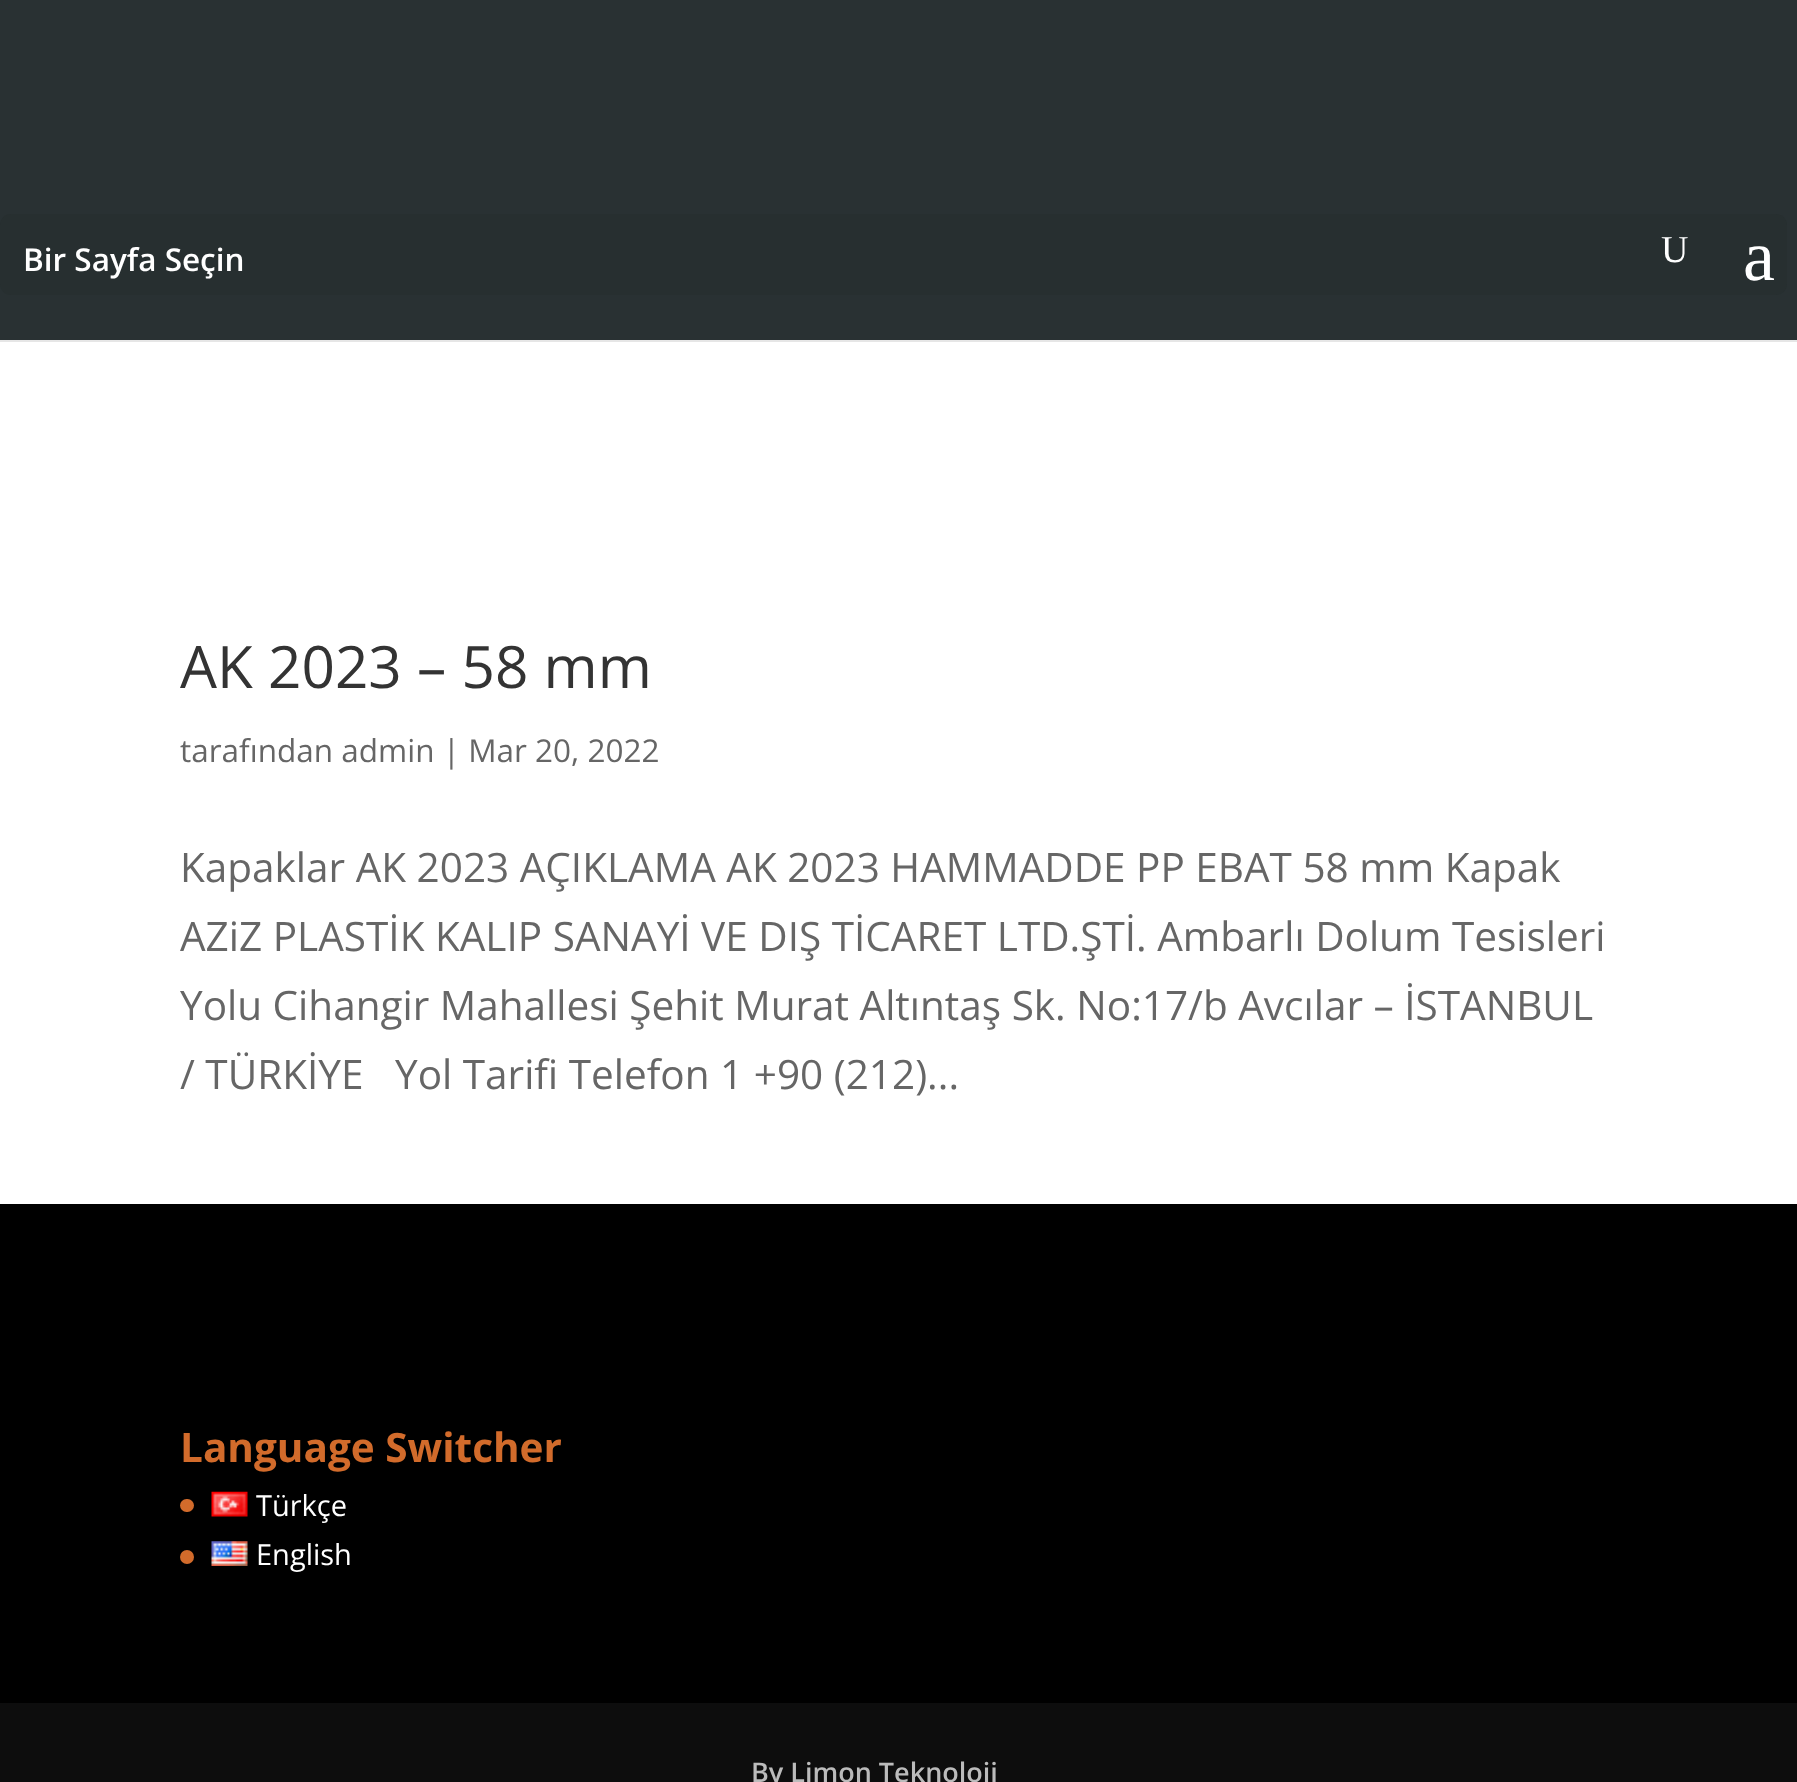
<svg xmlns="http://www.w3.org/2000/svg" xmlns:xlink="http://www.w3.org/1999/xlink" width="1797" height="1782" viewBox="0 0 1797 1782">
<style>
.cls-1{font:38px Liberation Serif;fill:#ffffff}
.cls-2{font:600 31.5px Open Sans;fill:#ffffff}
.cls-3{font:72px Liberation Serif;fill:#ffffff}
.cls-4{font:58.5px Open Sans;fill:#333333}
.cls-5{font:31.5px Open Sans;fill:#666666}
.cls-6{font:40.5px Open Sans;fill:#666666}
.cls-7{font:bold 40.5px Open Sans;fill:#d26b2b}
.cls-8{font:29px Open Sans;fill:#ffffff}
.cls-9{font:600 27px Open Sans;fill:#bbbbbb}
</style>
<rect width="100%" height="100%" fill="#ffffff"/>
<path fill="#e6e6e6" d="M0 340V342H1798V2V340Z"/>
<rect fill="#293133" x="0" y="0" width="1797" height="340"/>
<rect fill="#272f30" x="0" y="214" width="1787" height="81" rx="11"/>
<rect fill="#000000" x="0" y="1204" width="1797" height="499"/>
<rect fill="#d26b2b" x="180" y="1499" width="14" height="13" rx="6.5"/>
<image xlink:href="image0.png" x="211" y="1491" width="37" height="26"/>
<circle fill="#d26b2b" cx="187" cy="1557" r="7"/>
<image xlink:href="image1.png" x="211" y="1541" width="37" height="25"/>
<rect fill="#0d0d0d" x="0" y="1703" width="1797" height="79"/>
<text class="cls-1" x="1661" y="262">U</text>
<text class="cls-2" x="23" y="271">Bir Sayfa Seçin</text>
<text class="cls-3" x="1743" y="280">a</text>
<text class="cls-4" x="180" y="688">AK 2023 – 58 mm</text>
<text class="cls-5" x="180" y="762">tarafından admin | Mar 20, 2022</text>
<text class="cls-6" xml:space="preserve"><tspan x="180" y="882">Kapaklar AK 2023 AÇIKLAMA AK 2023 HAMMADDE PP EBAT 58 mm Kapak</tspan><tspan x="180" y="951">AZiZ PLASTİK KALIP SANAYİ VE DIŞ TİCARET LTD.ŞTİ. Ambarlı Dolum Tesisleri</tspan><tspan x="180" y="1020">Yolu Cihangir Mahallesi Şehit Murat Altıntaş Sk. No:17/b Avcılar – İSTANBUL</tspan><tspan x="180" y="1089">/ TÜRKİYE   Yol Tarifi Telefon 1 +90 (212)...</tspan></text>
<text class="cls-7" x="180" y="1462">Language Switcher</text>
<text class="cls-8"><tspan x="256" y="1516">Türkçe</tspan><tspan x="256" y="1565">English</tspan></text>
<text class="cls-9" x="751" y="1782">By Limon Teknoloji</text>
</svg>
